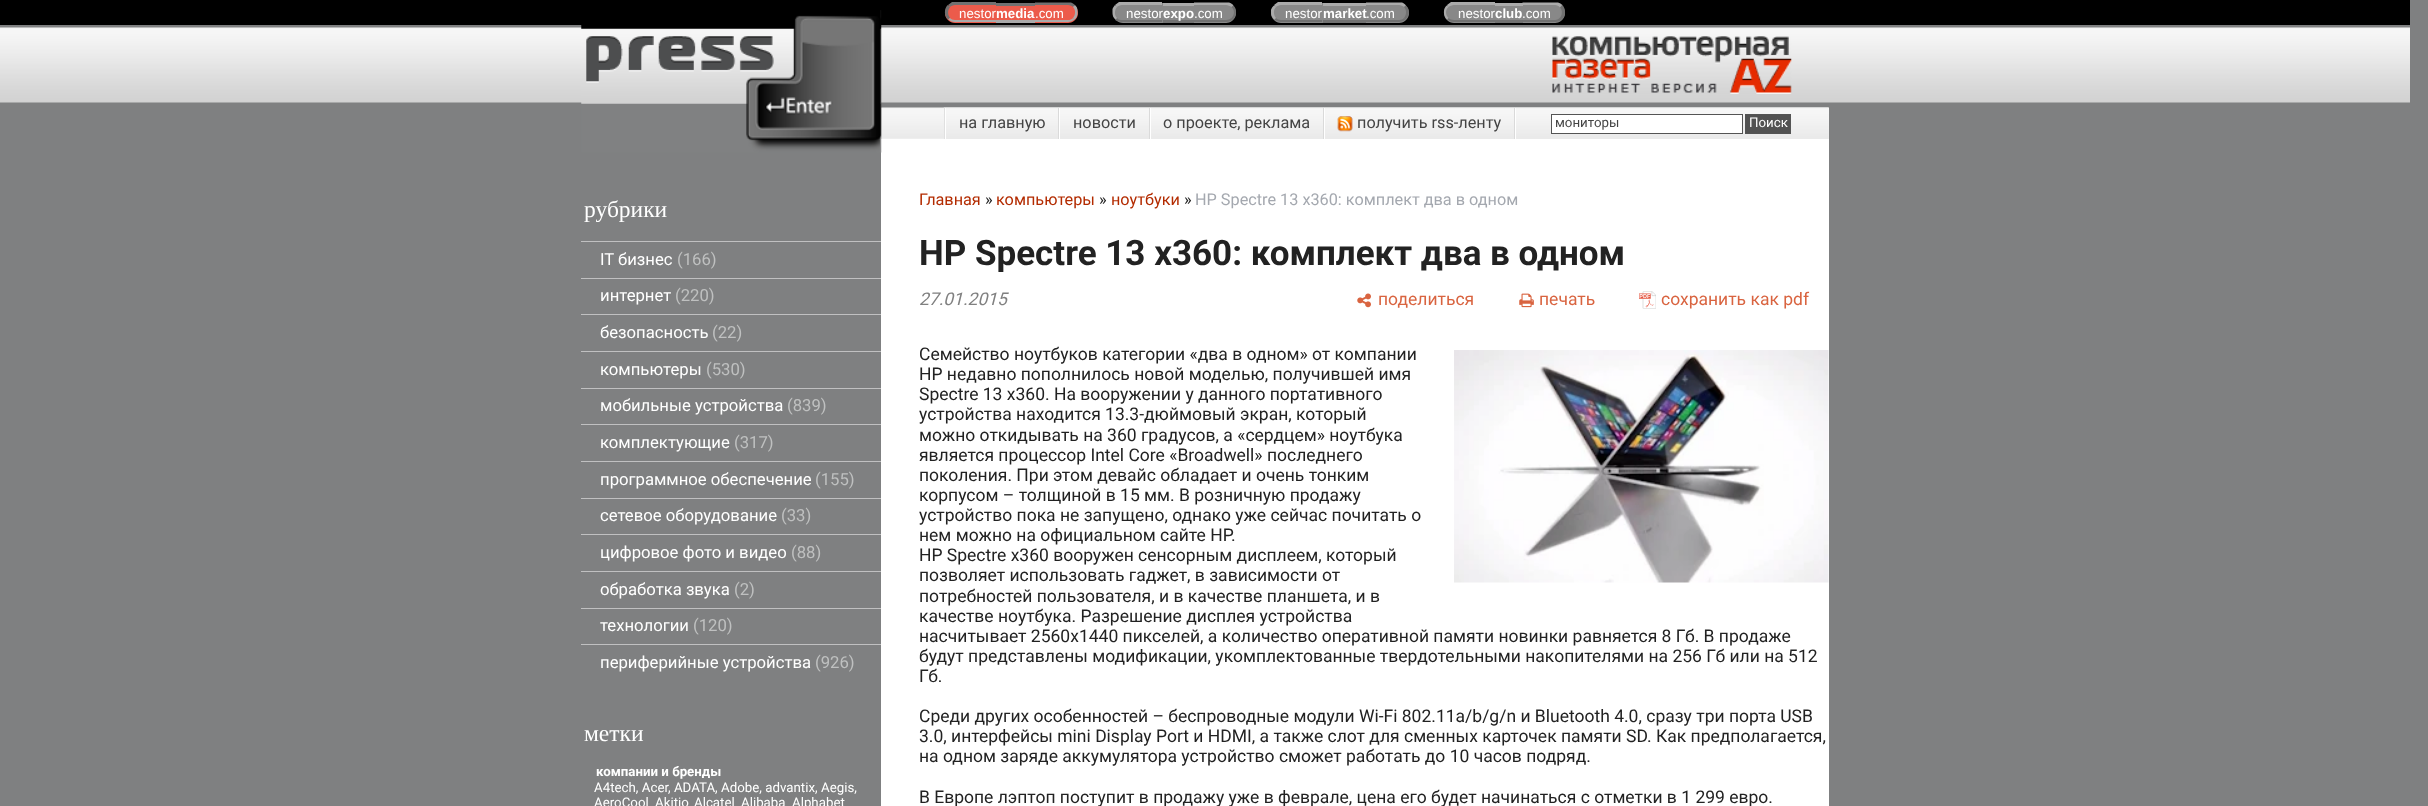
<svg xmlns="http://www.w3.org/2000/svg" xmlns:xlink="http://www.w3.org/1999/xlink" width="2428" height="806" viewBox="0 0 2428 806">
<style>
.cls-1{font:13.3px Liberation Sans;fill:#ffffff}
.cls-2{font:bold 13.3px Liberation Sans;fill:#ffffff}
.cls-3{font:16.25px Roboto;fill:#444444}
.cls-4{font:13.3px Roboto;fill:#444444}
.cls-5{font:13.3px Roboto;fill:#ffffff}
.cls-6{font:23.5px Liberation Serif;fill:#ffffff}
.cls-7{font:16.7px Roboto;fill:#ffffff}
.cls-8{font:16.7px Roboto;fill:#bfc0c0}
.cls-9{font:bold 13.3px Roboto;fill:#ffffff}
.cls-10{font:16.25px Roboto;fill:#b32b00}
.cls-11{font:16.25px Roboto;fill:#222222}
.cls-12{font:16.25px Roboto;fill:#a4a8af}
.cls-13{font:bold 35px Roboto;fill:#222222}
.cls-14{font:italic 17.5px Roboto;fill:#808080}
.cls-15{font:17.5px Roboto;fill:#d96440}
.cls-16{font:17.5px Roboto;fill:#222222}
</style>
<rect width="100%" height="100%" fill="#7f8081"/>
<rect fill="#000000" x="0" y="0" width="2410" height="25"/>
<path fill="#ec5b4b" d="M955 3H996V23H955C949.5 23 945 18.5 945 13C945 7.5 949.5 3 955 3Z"/>
<path fill="#717171" d="M955 5C953 5 951 6 950 7L948 5L952 2H996V5Z"/>
<path fill="#aaaaaa" d="M950 18L948 19C950 21 952 22 955 22H996V20H955C953 20 951 19 950 18Z"/>
<path fill="#717171" d="M948 19.5C944 16 944 9 947.5 5L950 7.5C947.5 10 947.5 15 950 17.5Z"/>
<rect fill="#ec5b4b" x="996" y="6" width="39" height="14"/>
<rect fill="#717171" x="996" y="3" width="39" height="3"/>
<path fill="#ec5b4b" d="M1035 3H1068C1073.5 3 1078 7.5 1078 13C1078 18.5 1073.5 23 1068 23H1035Z"/>
<path fill="#717171" d="M1035 5H1068C1070 5 1072 6 1073 7L1075 5C1073.5 4 1072.5 3 1071 2.5H1035Z"/>
<rect fill="#aaaaaa" x="996" y="20" width="39" height="3"/>
<path fill="#aaaaaa" d="M1073 18C1075.5 15 1076 10 1073 7L1075 5C1077.5 7.5 1077.5 9 1077.5 12C1077.5 15.5 1077 17.5 1074.5 19.5Z"/>
<path fill="#aaaaaa" d="M1035 20V22H1068C1070.5 22 1072.5 21 1074.5 19.5L1073 18C1071.5 19.5 1070 20 1068 20Z"/>
<path fill="#888888" d="M1123 3H1163V23H1123C1117.5 23 1113 18.5 1113 13C1113 7.5 1117.5 3 1123 3Z"/>
<path fill="#aaaaaa" d="M1122 5C1120 5 1118 6 1117 7L1115 5L1119 2H1162V5Z"/>
<path fill="#717171" d="M1117 18L1115 20C1117 21 1120 22 1122 22H1162V20H1121C1119 20 1118 19 1117 18Z"/>
<path fill="#aaaaaa" d="M1112.5 9C1113 7.5 1114 6.5 1115 5L1117 7C1114.5 10 1114 15 1117 18L1115.5 19.5C1112 16.5 1112.5 13.5 1112.5 9Z"/>
<rect fill="#888888" x="1163" y="6" width="31" height="14"/>
<rect fill="#aaaaaa" x="1163" y="3" width="31" height="3"/>
<rect fill="#717171" x="1163" y="20" width="31" height="3"/>
<path fill="#888888" d="M1194 3H1226C1231.5 3 1236 7.5 1236 13C1236 18.5 1231.5 23 1226 23H1194Z"/>
<path fill="#aaaaaa" d="M1194 5V2.5H1229C1231 3 1232.5 4 1233.5 5.5L1231.5 7C1230 6 1228 5 1226 5Z"/>
<path fill="#717171" d="M1231.5 18C1234.5 15 1235 10 1231.5 7L1233.5 5.5C1237 9 1237 15.5 1233 19.5Z"/>
<path fill="#717171" d="M1233 19.5L1231.5 18C1230 19 1228 20 1226 20H1194V22H1226C1229 22 1231.5 21 1233 19.5Z"/>
<path fill="#888888" d="M1281 3H1323V23H1281C1275.5 23 1271 18.5 1271 13C1271 7.5 1275.5 3 1281 3Z"/>
<path fill="#aaaaaa" d="M1281 5C1279 5 1277 6 1276 7L1274 5L1278 2H1322V5Z"/>
<path fill="#717171" d="M1276 18L1274 19C1276 21 1279 22 1281 22H1322V20H1281C1279 20 1277 19 1276 18Z"/>
<path fill="#aaaaaa" d="M1271 10C1271.5 8.5 1272.5 6.5 1274 5.5L1276 7C1273 10 1273.5 15 1276 18L1274.5 19.5C1271 16.5 1271 14 1271 10Z"/>
<rect fill="#717171" x="1323" y="20" width="43" height="3"/>
<rect fill="#888888" x="1323" y="6" width="43" height="14"/>
<rect fill="#aaaaaa" x="1323" y="3" width="43" height="3"/>
<path fill="#888888" d="M1366 3H1399C1404.5 3 1409 7.5 1409 13C1409 18.5 1404.5 23 1399 23H1366Z"/>
<path fill="#aaaaaa" d="M1366 2.5H1402C1403.5 3 1405 4 1406 5.5L1404 7C1403 6 1401 5 1399 5H1366Z"/>
<path fill="#717171" d="M1404 18C1406.5 15 1407 10 1404 7L1406 5.5C1410 9 1410 15.5 1405.5 19.5Z"/>
<path fill="#717171" d="M1366 20H1399C1401 20 1403 19 1404 18L1405.5 19.5C1404 21 1401.5 22 1399 22H1366Z"/>
<path fill="#888888" d="M1454 3H1495V23H1454C1448.5 23 1444 18.5 1444 13C1444 7.5 1448.5 3 1454 3Z"/>
<path fill="#717171" d="M1495 22V20H1454C1452 20 1450 19 1448 18L1447 19C1449 21 1451 22 1454 22Z"/>
<path fill="#aaaaaa" d="M1454 5C1452 5 1450 6 1448 7L1447 5L1451 2H1495V5Z"/>
<path fill="#aaaaaa" d="M1447 19.5C1443 15.5 1443 9 1446.5 5.5L1448.5 7C1445 10 1445.5 15 1448.5 18Z"/>
<rect fill="#888888" x="1495" y="6" width="28" height="14"/>
<rect fill="#aaaaaa" x="1495" y="3" width="28" height="3"/>
<path fill="#888888" d="M1523 3H1555C1560.5 3 1565 7.5 1565 13C1565 18.5 1560.5 23 1555 23H1523Z"/>
<path fill="#aaaaaa" d="M1522.5 2.5H1558C1560 3 1561 4 1562.5 5L1560 7.5C1559 6 1557 5 1555 5H1522.5Z"/>
<rect fill="#717171" x="1495" y="20" width="28" height="3"/>
<path fill="#717171" d="M1560 17.5C1562.5 15 1562.5 10 1560 7.5L1562.5 5C1566 9 1566 16 1562 19.5Z"/>
<path fill="#717171" d="M1522.5 20H1555C1557 20 1559 19 1560 17.5L1562 19.5C1560.5 21 1558 22 1555 22H1522.5Z"/>
<image xlink:href="image0.png" x="0" y="27" width="580" height="76"/>
<image xlink:href="image1.png" x="580" y="27" width="1250" height="76"/>
<rect fill="#ffffff" x="881" y="108" width="948" height="698"/>
<image xlink:href="image4.png" x="881" y="107" width="948" height="32"/>
<rect fill="#e0e0e0" x="881" y="108" width="1" height="31"/>
<image xlink:href="image2.png" x="581" y="10" width="301" height="143"/>
<image xlink:href="image3.png" x="1552" y="36" width="240" height="58"/>
<image xlink:href="image0.png" x="1830" y="27" width="580" height="76"/>
<image xlink:href="image5.png" x="943" y="107" width="886" height="32"/>
<rect fill="#e0e0e0" x="944" y="108" width="1" height="31"/>
<rect fill="#dadada" x="1058" y="108" width="1" height="31"/>
<rect fill="#ffffff" x="945" y="108" width="1" height="31"/>
<rect fill="#dadada" x="1149" y="108" width="1" height="31"/>
<rect fill="#ffffff" x="1059" y="108" width="1" height="31"/>
<rect fill="#dadada" x="1323" y="108" width="1" height="31"/>
<rect fill="#ffffff" x="1150" y="108" width="1" height="31"/>
<rect fill="#dadada" x="1514" y="108" width="1" height="31"/>
<rect fill="#ffffff" x="1324" y="108" width="1" height="31"/>
<image xlink:href="image6.png" x="1337" y="116" width="16" height="16"/>
<rect fill="#ffffff" x="1515" y="108" width="1" height="31"/>
<rect fill="#ffffff" stroke="#545454" x="1551.5" y="114.5" width="191" height="19"/>
<rect fill="#525252" stroke="#545454" x="1745.5" y="114.5" width="45" height="19"/>
<rect fill="#c0c0c1" x="581" y="241" width="300" height="1"/>
<rect fill="#c0c0c1" x="581" y="278" width="300" height="1"/>
<rect fill="#c0c0c1" x="581" y="314" width="300" height="1"/>
<rect fill="#c0c0c1" x="581" y="351" width="300" height="1"/>
<rect fill="#c0c0c1" x="581" y="388" width="300" height="1"/>
<rect fill="#c0c0c1" x="581" y="424" width="300" height="1"/>
<rect fill="#c0c0c1" x="581" y="461" width="300" height="1"/>
<rect fill="#c0c0c1" x="581" y="498" width="300" height="1"/>
<rect fill="#c0c0c1" x="581" y="534" width="300" height="1"/>
<rect fill="#c0c0c1" x="581" y="571" width="300" height="1"/>
<rect fill="#c0c0c1" x="581" y="608" width="300" height="1"/>
<rect fill="#c0c0c1" x="581" y="644" width="300" height="1"/>
<image xlink:href="image7.png" x="1357" y="293" width="14" height="15"/>
<image xlink:href="image8.png" x="1519" y="293" width="15" height="15"/>
<image xlink:href="image9.png" x="1639" y="291" width="17" height="18"/>
<image xlink:href="image10.png" x="1454" y="350" width="375" height="233"/>
<text class="cls-1" x="959" y="18">nestor</text>
<text class="cls-2" x="996" y="18">media</text>
<text class="cls-1" x="1035" y="18">.com</text>
<text class="cls-1" x="1126" y="18">nestor</text>
<text class="cls-2" x="1163" y="18">expo</text>
<text class="cls-1" x="1194" y="18">.com</text>
<text class="cls-1" x="1285" y="18">nestor</text>
<text class="cls-2" x="1323" y="18">market</text>
<text class="cls-1" x="1366" y="18">.com</text>
<text class="cls-1" x="1458" y="18">nestor</text>
<text class="cls-2" x="1495" y="18">club</text>
<text class="cls-1" x="1522" y="18">.com</text>
<text class="cls-3" x="959" y="128">на главную</text>
<text class="cls-3" x="1073" y="128">новости</text>
<text class="cls-3" x="1163" y="128">о проекте, реклама</text>
<text class="cls-3" x="1357" y="128">получить rss-ленту</text>
<text class="cls-4" x="1555" y="127">мониторы</text>
<text class="cls-5" x="1749" y="127">Поиск</text>
<text class="cls-6" x="584" y="217">рубрики</text>
<text class="cls-7" x="600" y="265">IT бизнес</text>
<text class="cls-8" x="677" y="265">(166)</text>
<text class="cls-7" x="600" y="301">интернет</text>
<text class="cls-8" x="675" y="301">(220)</text>
<text class="cls-7" x="600" y="338">безопасность</text>
<text class="cls-8" x="712" y="338">(22)</text>
<text class="cls-7" x="600" y="375">компьютеры</text>
<text class="cls-8" x="706" y="375">(530)</text>
<text class="cls-7" x="600" y="411">мобильные устройства</text>
<text class="cls-8" x="787" y="411">(839)</text>
<text class="cls-7" x="600" y="448">комплектующие</text>
<text class="cls-8" x="734" y="448">(317)</text>
<text class="cls-7" x="600" y="485">программное обеспечение</text>
<text class="cls-8" x="815" y="485">(155)</text>
<text class="cls-7" x="600" y="521">сетевое оборудование</text>
<text class="cls-8" x="781" y="521">(33)</text>
<text class="cls-7" x="600" y="558">цифровое фото и видео</text>
<text class="cls-8" x="791" y="558">(88)</text>
<text class="cls-7" x="600" y="595">обработка звука</text>
<text class="cls-8" x="734" y="595">(2)</text>
<text class="cls-7" x="600" y="631">технологии</text>
<text class="cls-8" x="693" y="631">(120)</text>
<text class="cls-7" x="600" y="668">периферийные устройства</text>
<text class="cls-8" x="815" y="668">(926)</text>
<text class="cls-6" x="584" y="741">метки</text>
<text class="cls-9" x="596" y="776">компании и бренды</text>
<text class="cls-5" x="594" y="792">A4tech, Acer</text>
<text class="cls-5" x="668" y="792">, ADATA, Adobe, advantix, Aegis,</text>
<text class="cls-5" x="594" y="807">AeroCool</text>
<text class="cls-5" x="655" y="807">Akitio</text>
<text class="cls-5" x="694" y="807">Alcatel</text>
<text class="cls-5" x="741" y="807">Alibaba</text>
<text class="cls-5" x="792" y="807">Alphabet</text>
<text class="cls-10" x="919" y="205">Главная</text>
<text class="cls-11" x="985" y="205">»</text>
<text class="cls-10" x="996" y="205">компьютеры</text>
<text class="cls-11" x="1099" y="205">»</text>
<text class="cls-10" x="1111" y="205">ноутбуки</text>
<text class="cls-11" x="1184" y="205">»</text>
<text class="cls-12" x="1195" y="205">HP Spectre 13 x360: комплект два в одном</text>
<text class="cls-13" x="919" y="265">HP Spectre 13 x360: комплект два в одном</text>
<text class="cls-14" x="919" y="305">27.01.2015</text>
<text class="cls-15" x="1378" y="305">поделиться</text>
<text class="cls-15" x="1539" y="305">печать</text>
<text class="cls-15" x="1661" y="305">сохранить как pdf</text>
<text class="cls-16"><tspan x="919" y="360">Семейство ноутбуков категории «два в одном» от компании</tspan><tspan x="919" y="380">HP недавно пополнилось новой моделью, получившей имя</tspan><tspan x="919" y="400">Spectre 13 x360. На вооружении у данного портативного</tspan><tspan x="919" y="420">устройства находится 13.3-дюймовый экран, который</tspan><tspan x="919" y="441">можно откидывать на 360 градусов, а «сердцем» ноутбука</tspan><tspan x="919" y="461">является процессор Intel Core «Broadwell» последнего</tspan><tspan x="919" y="481">поколения. При этом девайс обладает и очень тонким</tspan><tspan x="919" y="501">корпусом – толщиной в 15 мм. В розничную продажу</tspan><tspan x="919" y="521">устройство пока не запущено, однако уже сейчас почитать о</tspan><tspan x="919" y="541">нем можно на официальном сайте HP.</tspan><tspan x="919" y="561">HP Spectre x360 вооружен сенсорным дисплеем, который</tspan><tspan x="919" y="581">позволяет использовать гаджет, в зависимости от</tspan><tspan x="919" y="602">потребностей пользователя, и в качестве планшета, и в</tspan><tspan x="919" y="622">качестве ноутбука. Разрешение дисплея устройства</tspan><tspan x="919" y="642">насчитывает 2560x1440 пикселей, а количество оперативной памяти новинки равняется 8 Гб. В продаже</tspan><tspan x="919" y="662">будут представлены модификации, укомплектованные твердотельными накопителями на 256 Гб или на 512</tspan><tspan x="919" y="682">Гб.</tspan></text>
<text class="cls-16"><tspan x="919" y="722">Среди других особенностей – беспроводные модули Wi-Fi 802.11a/b/g/n и Bluetooth 4.0, сразу три порта USB</tspan><tspan x="919" y="742">3.0, интерфейсы mini Display Port и HDMI, а также слот для сменных карточек памяти SD. Как предполагается,</tspan><tspan x="919" y="762">на одном заряде аккумулятора устройство сможет работать до 10 часов подряд.</tspan></text>
<text class="cls-16" x="919" y="803">В Европе лэптоп поступит в продажу уже в феврале, цена его будет начинаться с отметки в 1 299 евро.</text>
</svg>
